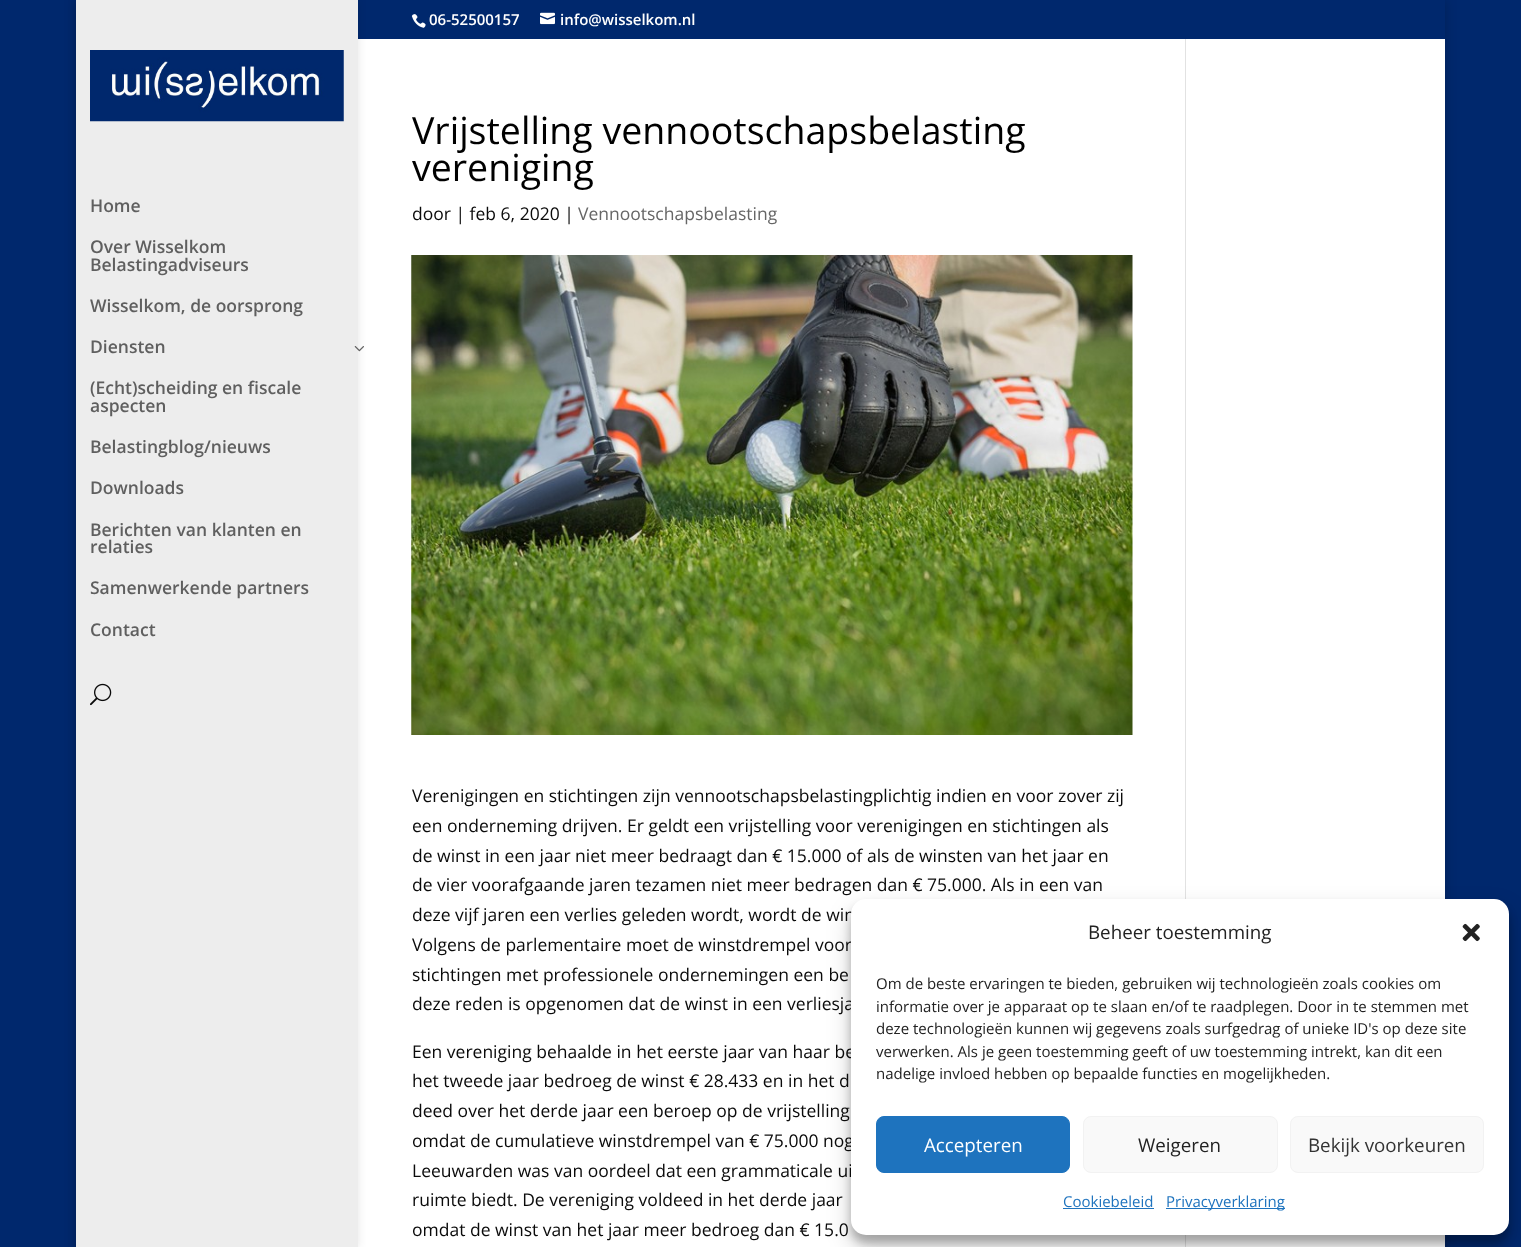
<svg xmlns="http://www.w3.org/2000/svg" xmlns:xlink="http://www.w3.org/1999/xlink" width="1521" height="1247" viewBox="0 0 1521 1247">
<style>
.cls-1{font:600 15px Open Sans;fill:#ffffff}
.cls-2{font:600 17.5px Open Sans;fill:#5f5f5f}
.cls-3{font:37.5px Open Sans;fill:#000000}
.cls-4{font:17.5px Open Sans;fill:#0a0a0a}
.cls-5{font:17.5px Open Sans;fill:#666666}
.cls-6{font:18.75px Open Sans;fill:#222222}
.cls-7{font:15px Open Sans;fill:#222222}
.cls-8{font:18.75px Open Sans;fill:#ffffff}
.cls-9{font:18.75px Open Sans;fill:#333333}
.cls-10{font:15px Open Sans;fill:#1e73be}
</style>
<defs>
<clipPath id="clip1"><path d="M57 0H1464V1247H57ZM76 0H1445V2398H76Z" clip-rule="evenodd"/></clipPath>
</defs>
<rect width="100%" height="100%" fill="#00286d"/>
<g clip-path="url(#clip1)">
<rect fill="#000000" fill-opacity="0.2" filter="blur(6px)" x="76" y="0" width="1369" height="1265"/>
</g>
<image xlink:href="image0.png" x="411" y="14" width="15" height="14"/>
<image xlink:href="image1.png" x="540" y="12" width="15" height="13"/>
<rect fill="#ffffff" x="358" y="39" width="1087" height="1208"/>
<rect fill="#000000" fill-opacity="0.1" filter="blur(4.5px)" x="76" y="0" width="282" height="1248"/>
<rect fill="#ededed" x="76" y="0" width="282" height="1247"/>
<image xlink:href="image2.png" x="90" y="50" width="254" height="72"/>
<image xlink:href="image3.png" x="354" y="346" width="10" height="6"/>
<image xlink:href="image4.png" x="90" y="683" width="22" height="23"/>
<image xlink:href="image5.png" x="411" y="255" width="722" height="480"/>
<rect fill="#e2e2e2" x="1185" y="39" width="1" height="1208"/>
<rect fill="#000000" fill-opacity="0.23" filter="blur(4px)" x="851" y="906" width="658" height="337" rx="15"/>
<rect fill="#000000" fill-opacity="0.19" filter="blur(12.5px)" x="851" y="911" width="658" height="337" rx="15"/>
<text class="cls-1" x="429" y="25">06-52500157</text>
<text class="cls-1" x="560" y="25">info@wisselkom.nl</text>
<text class="cls-2" x="90" y="212">Home</text>
<text class="cls-2"><tspan x="90" y="253">Over Wisselkom</tspan><tspan x="90" y="271">Belastingadviseurs</tspan></text>
<text class="cls-2" x="90" y="312">Wisselkom, de oorsprong</text>
<text class="cls-2" x="90" y="353">Diensten</text>
<text class="cls-2"><tspan x="90" y="394">(Echt)scheiding en fiscale</tspan><tspan x="90" y="412">aspecten</tspan></text>
<text class="cls-2" x="90" y="453">Belastingblog/nieuws</text>
<text class="cls-2" x="90" y="494">Downloads</text>
<text class="cls-2"><tspan x="90" y="536">Berichten van klanten en</tspan><tspan x="90" y="553">relaties</tspan></text>
<text class="cls-2" x="90" y="594">Samenwerkende partners</text>
<text class="cls-2" x="90" y="636">Contact</text>
<text class="cls-3"><tspan x="412" y="144">Vrijstelling vennootschapsbelasting</tspan><tspan x="412" y="181">vereniging</tspan></text>
<text class="cls-4" x="412" y="220">door | feb 6, 2020 |</text>
<text class="cls-5" x="578" y="220">Vennootschapsbelasting</text>
<text class="cls-4"><tspan x="412" y="802">Verenigingen en stichtingen zijn vennootschapsbelastingplichtig indien en voor zover zij</tspan><tspan x="412" y="832">een onderneming drijven. Er geldt een vrijstelling voor verenigingen en stichtingen als</tspan><tspan x="412" y="862">de winst in een jaar niet meer bedraagt dan € 15.000 of als de winsten van het jaar en</tspan><tspan x="412" y="891">de vier voorafgaande jaren tezamen niet meer bedragen dan € 75.000. Als in een van</tspan><tspan x="412" y="921">deze vijf jaren een verlies geleden wordt, wordt de win</tspan><tspan x="412" y="951">Volgens de parlementaire moet de winstdrempel voor</tspan><tspan x="412" y="981">stichtingen met professionele ondernemingen een be</tspan><tspan x="412" y="1010">deze reden is opgenomen dat de winst in een verliesja</tspan></text>
<text class="cls-4"><tspan x="412" y="1058">Een vereniging behaalde in het eerste jaar van haar be</tspan><tspan x="412" y="1087">het tweede jaar bedroeg de winst € 28.433 en in het d</tspan><tspan x="412" y="1117">deed over het derde jaar een beroep op de vrijstelling</tspan><tspan x="412" y="1147">omdat de cumulatieve winstdrempel van € 75.000 nog</tspan><tspan x="412" y="1177">Leeuwarden was van oordeel dat een grammaticale ui</tspan><tspan x="412" y="1206">ruimte biedt. De vereniging voldeed in het derde jaar</tspan><tspan x="412" y="1236">omdat de winst van het jaar meer bedroeg dan € 15.0</tspan></text>
<rect fill="#ffffff" x="851" y="899" width="658" height="336" rx="15"/>
<text class="cls-6" x="1088" y="939">Beheer toestemming</text>
<image xlink:href="image6.png" x="1462" y="923" width="18" height="19"/>
<text class="cls-7"><tspan x="876" y="989">Om de beste ervaringen te bieden, gebruiken wij technologieën zoals cookies om</tspan><tspan x="876" y="1012">informatie over je apparaat op te slaan en/of te raadplegen. Door in te stemmen met</tspan><tspan x="876" y="1034">deze technologieën kunnen wij gegevens zoals surfgedrag of unieke ID's op deze site</tspan><tspan x="876" y="1057">verwerken. Als je geen toestemming geeft of uw toestemming intrekt, kan dit een</tspan><tspan x="876" y="1079">nadelige invloed hebben op bepaalde functies en mogelijkheden.</tspan></text>
<rect fill="#1e73be" stroke="#1e73be" x="876.5" y="1116.5" width="193" height="56" rx="7.5"/>
<text class="cls-8" x="924" y="1152">Accepteren</text>
<rect fill="#f9f9f9" stroke="#f2f2f2" x="1083.5" y="1116.5" width="194" height="56" rx="7.5"/>
<text class="cls-6" x="1138" y="1152">Weigeren</text>
<rect fill="#f9f9f9" stroke="#f2f2f2" x="1290.5" y="1116.5" width="193" height="56" rx="7.5"/>
<text class="cls-9" x="1308" y="1152">Bekijk voorkeuren</text>
<text class="cls-10" x="1063" y="1207">Cookiebeleid</text>
<rect fill="#1e73be" x="1063" y="1208" width="91" height="1"/>
<rect fill="#1e73be" x="1166" y="1208" width="119" height="1"/>
<text class="cls-10" x="1166" y="1207">Privacyverklaring</text>
</svg>
